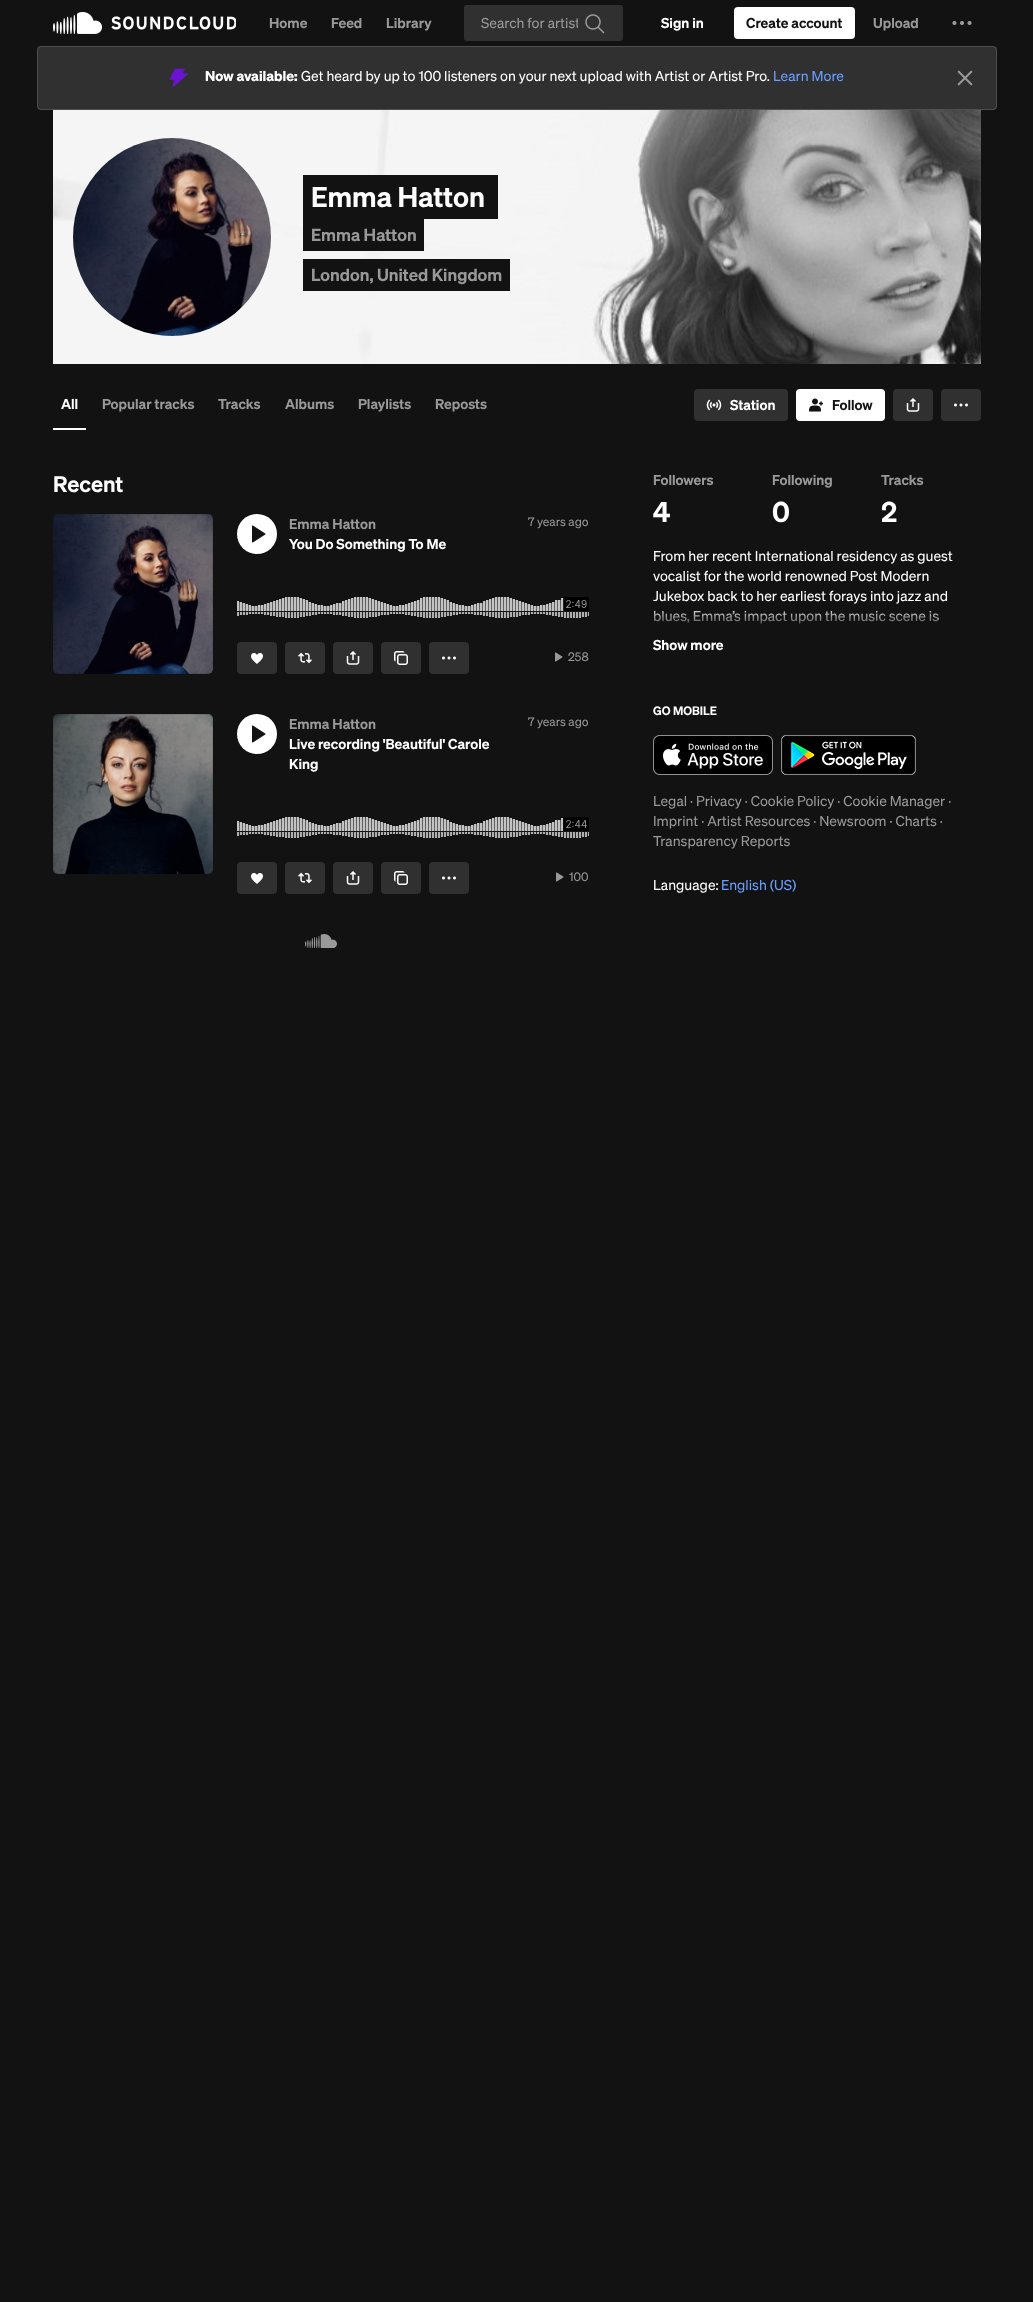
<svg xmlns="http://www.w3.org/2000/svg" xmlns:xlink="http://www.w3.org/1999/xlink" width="1033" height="2302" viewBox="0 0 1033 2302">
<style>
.cls-1{font:600 14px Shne;fill:#999999}
.cls-2{font:14px Shne;fill:#999999}
.cls-3{font:600 14px Shne;fill:#ffffff}
.cls-4{font:600 14px Shne;fill:#121212}
.cls-5{font:bold 14px Shne;fill:#ffffff}
.cls-6{font:14px Shne;fill:#ffffff}
.cls-7{font:14px Shne;fill:#699fff}
.cls-8{font:600 28px Shne;fill:#ffffff}
.cls-9{font:600 17px Shne;fill:#999999}
.cls-10{font:600 22px Shne;fill:#ffffff}
.cls-11{font:12px Shne;fill:#999999}
.cls-12{font:600 12px Shne;fill:#ffffff}
</style>
<defs>
<clipPath id="clip1"><rect x="481" y="12" width="97" height="22"/></clipPath>
<linearGradient id="g1" gradientUnits="userSpaceOnUse" x1="817" y1="606" x2="817" y2="631"><stop offset="0" stop-color="#121212" stop-opacity="0"/><stop offset="1" stop-color="#121212"/></linearGradient>
</defs>
<rect width="100%" height="100%" fill="#121212"/>
<image xlink:href="image0.png" x="53" y="12" width="183" height="22"/>
<rect fill="#303030" x="464" y="5" width="159" height="36" rx="3"/>
<image xlink:href="image1.png" x="585" y="14" width="20" height="20"/>
<rect fill="#ffffff" x="734" y="7" width="121" height="32" rx="4"/>
<image xlink:href="image2.png" x="952" y="21" width="20" height="4"/>
<rect fill="#303030" x="37" y="46" width="960" height="64" rx="4"/>
<rect fill="none" stroke="#ffffff" stroke-opacity="0.15" x="37.5" y="46.5" width="959" height="63" rx="3.5"/>
<image xlink:href="image3.png" x="169" y="68" width="20" height="20"/>
<image xlink:href="image4.png" x="957" y="70" width="16" height="16"/>
<image xlink:href="image5.png" x="53" y="110" width="928" height="254"/>
<image xlink:href="image6.png" x="73" y="138" width="198" height="198"/>
<rect fill="#121212" x="303" y="175" width="195" height="44"/>
<rect fill="#121212" x="303" y="219" width="121" height="32"/>
<rect fill="#121212" x="303" y="259" width="207" height="32"/>
<rect fill="#ffffff" x="53" y="428" width="33" height="2"/>
<rect fill="#303030" x="694" y="389" width="94" height="32" rx="4"/>
<image xlink:href="image7.png" x="706" y="399" width="16" height="12"/>
<rect fill="#ffffff" x="796" y="389" width="89" height="32" rx="4"/>
<image xlink:href="image8.png" x="809" y="398" width="14" height="14"/>
<rect fill="#303030" x="893" y="389" width="40" height="32" rx="4"/>
<image xlink:href="image9.png" x="906" y="398" width="14" height="14"/>
<rect fill="#303030" x="941" y="389" width="40" height="32" rx="4"/>
<image xlink:href="image10.png" x="954" y="403" width="14" height="4"/>
<image xlink:href="image11.png" x="53" y="514" width="160" height="160"/>
<rect fill="none" stroke="#121212" stroke-opacity="0.1" x="53.5" y="514.5" width="159" height="159" rx="4.5"/>
<circle fill="#ffffff" cx="257" cy="534" r="20"/>
<image xlink:href="image12.png" x="252" y="525" width="14" height="18"/>
<image xlink:href="image13.png" x="237" y="597" width="352" height="21"/>
<image xlink:href="image14.png" x="563" y="597" width="26" height="14"/>
<rect fill="#303030" x="237" y="642" width="40" height="32" rx="4"/>
<image xlink:href="image15.png" x="251" y="653" width="12" height="11"/>
<rect fill="#303030" x="285" y="642" width="40" height="32" rx="4"/>
<image xlink:href="image16.png" x="298" y="652" width="14" height="12"/>
<rect fill="#303030" x="333" y="642" width="40" height="32" rx="4"/>
<image xlink:href="image9.png" x="346" y="651" width="14" height="14"/>
<rect fill="#303030" x="381" y="642" width="40" height="32" rx="4"/>
<image xlink:href="image17.png" x="394" y="651" width="14" height="14"/>
<rect fill="#303030" x="429" y="642" width="40" height="32" rx="4"/>
<image xlink:href="image10.png" x="442" y="656" width="14" height="4"/>
<image xlink:href="image18.png" x="555" y="652" width="8" height="10"/>
<image xlink:href="image19.png" x="53" y="714" width="160" height="160"/>
<rect fill="none" stroke="#121212" stroke-opacity="0.1" x="53.5" y="714.5" width="159" height="159" rx="4.5"/>
<circle fill="#ffffff" cx="257" cy="734" r="20"/>
<image xlink:href="image12.png" x="252" y="725" width="14" height="18"/>
<image xlink:href="image13.png" x="237" y="817" width="352" height="21"/>
<image xlink:href="image20.png" x="563" y="817" width="26" height="14"/>
<rect fill="#303030" x="237" y="862" width="40" height="32" rx="4"/>
<image xlink:href="image15.png" x="251" y="873" width="12" height="11"/>
<rect fill="#303030" x="285" y="862" width="40" height="32" rx="4"/>
<image xlink:href="image16.png" x="298" y="872" width="14" height="12"/>
<rect fill="#303030" x="333" y="862" width="40" height="32" rx="4"/>
<image xlink:href="image9.png" x="346" y="871" width="14" height="14"/>
<rect fill="#303030" x="381" y="862" width="40" height="32" rx="4"/>
<image xlink:href="image17.png" x="394" y="871" width="14" height="14"/>
<rect fill="#303030" x="429" y="862" width="40" height="32" rx="4"/>
<image xlink:href="image10.png" x="442" y="876" width="14" height="4"/>
<image xlink:href="image18.png" x="556" y="872" width="8" height="10"/>
<image xlink:href="image21.png" x="305" y="934" width="32" height="14"/>
<image xlink:href="image22.png" x="653" y="735" width="120" height="40"/>
<image xlink:href="image23.png" x="781" y="735" width="135" height="40"/>
<text class="cls-1" x="269" y="28">Home</text>
<text class="cls-1" x="331" y="28">Feed</text>
<text class="cls-1" x="386" y="28">Library</text>
<g clip-path="url(#clip1)">
<text class="cls-2" x="481" y="28">Search for artist</text>
</g>
<text class="cls-3" x="661" y="28">Sign in</text>
<text class="cls-4" x="746" y="28">Create account</text>
<text class="cls-1" x="873" y="28">Upload</text>
<text class="cls-5" x="205" y="81">Now available:</text>
<text class="cls-6" x="301" y="81">Get heard by up to 100 listeners on your next upload with Artist or Artist Pro.</text>
<text class="cls-7" x="773" y="81">Learn More</text>
<text class="cls-8" x="311" y="207">Emma Hatton</text>
<text class="cls-9" x="311" y="241">Emma Hatton</text>
<text class="cls-9" x="311" y="281">London, United Kingdom</text>
<text class="cls-3" x="61" y="409">All</text>
<text class="cls-1" x="102" y="409">Popular tracks</text>
<text class="cls-1" x="218" y="409">Tracks</text>
<text class="cls-1" x="285" y="409">Albums</text>
<text class="cls-1" x="358" y="409">Playlists</text>
<text class="cls-1" x="435" y="409">Reposts</text>
<text class="cls-3" x="730" y="410">Station</text>
<text class="cls-4" x="832" y="410">Follow</text>
<text class="cls-10" x="53" y="492">Recent</text>
<text class="cls-1" x="289" y="529">Emma Hatton</text>
<text class="cls-3" x="289" y="549">You Do Something To Me</text>
<text class="cls-11" x="528" y="526">7 years ago</text>
<text class="cls-11" x="568" y="661">258</text>
<text class="cls-1" x="289" y="729">Emma Hatton</text>
<text class="cls-3"><tspan x="289" y="749">Live recording 'Beautiful' Carole</tspan><tspan x="289" y="769">King</tspan></text>
<text class="cls-11" x="528" y="726">7 years ago</text>
<text class="cls-11" x="569" y="881">100</text>
<text class="cls-1" x="653" y="485">Followers</text>
<text class="cls-8" x="653" y="522">4</text>
<text class="cls-1" x="772" y="485">Following</text>
<text class="cls-8" x="772" y="522">0</text>
<text class="cls-1" x="881" y="485">Tracks</text>
<text class="cls-8" x="881" y="522">2</text>
<text class="cls-6"><tspan x="653" y="561">From her recent International residency as guest</tspan><tspan x="653" y="581">vocalist for the world renowned Post Modern</tspan><tspan x="653" y="601">Jukebox back to her earliest forays into jazz and</tspan><tspan x="653" y="621">blues, Emma’s impact upon the music scene is</tspan></text>
<rect fill="url(#g1)" x="653" y="610" width="285" height="14"/>
<text class="cls-3" x="653" y="650">Show more</text>
<text class="cls-12" x="653" y="715">GO MOBILE</text>
<text class="cls-2"><tspan x="653" y="806">Legal · Privacy · Cookie Policy · Cookie Manager ·</tspan><tspan x="653" y="826">Imprint · Artist Resources · Newsroom · Charts ·</tspan><tspan x="653" y="846">Transparency Reports</tspan></text>
<text class="cls-6" x="653" y="890">Language:</text>
<text class="cls-7" x="721" y="890">English (US)</text>
</svg>
